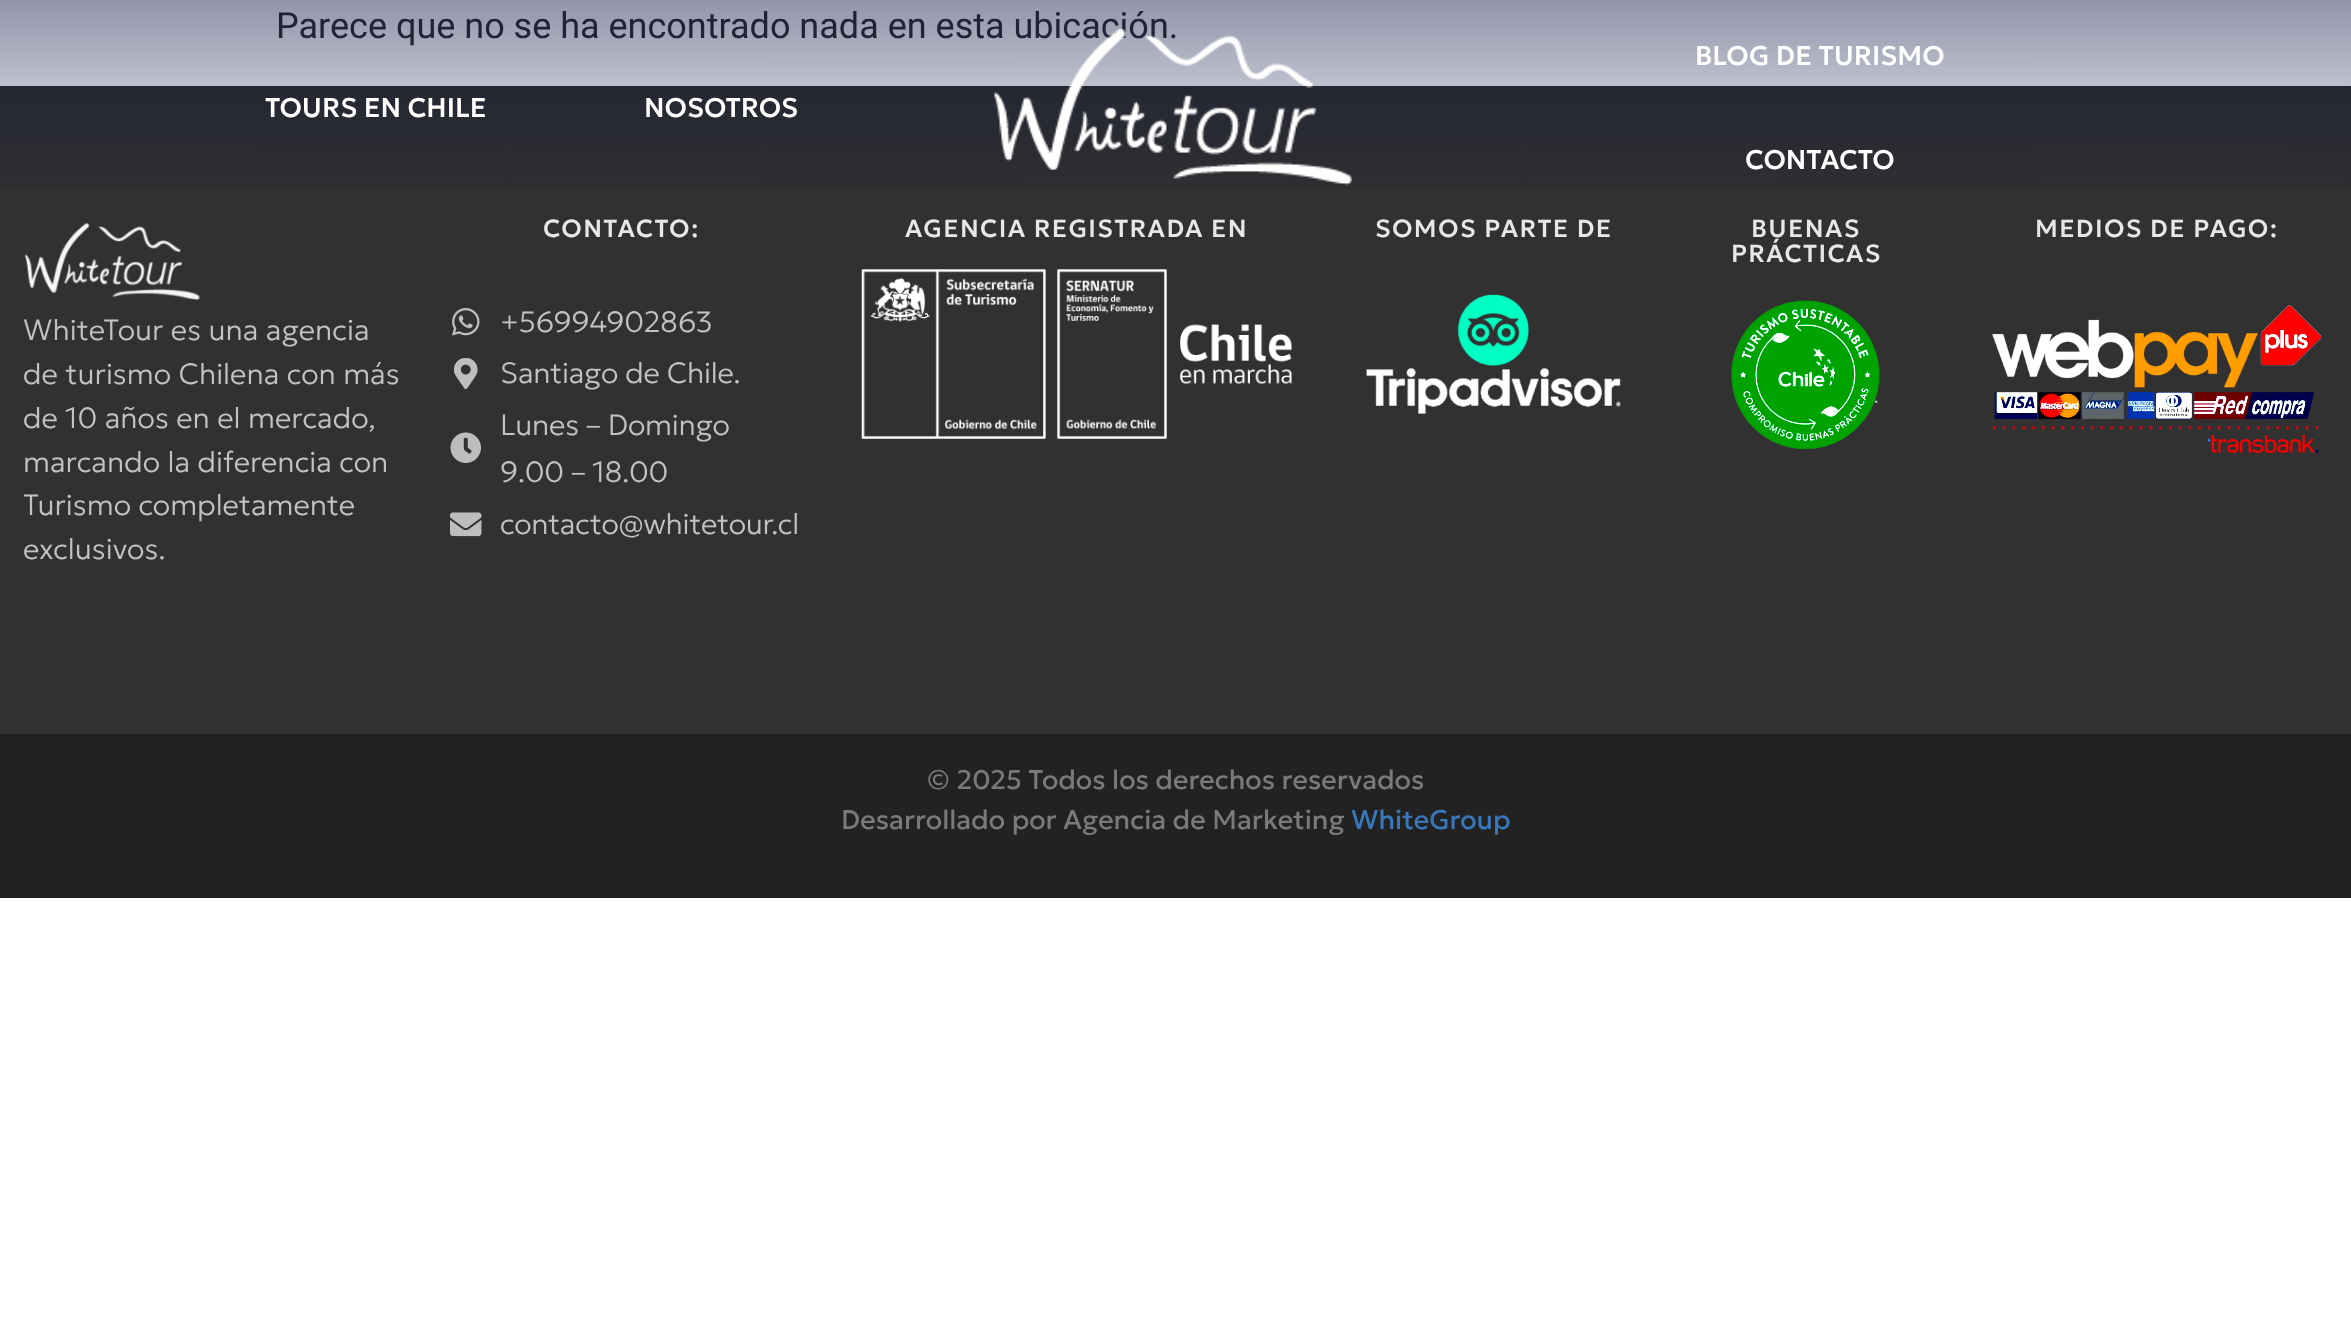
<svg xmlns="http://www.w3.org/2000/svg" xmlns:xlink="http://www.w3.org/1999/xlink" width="2351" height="1323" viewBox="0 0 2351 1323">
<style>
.cls-1{font:36px Roboto;fill:#333333}
.cls-2{font:500 27px Geologica;fill:#ffffff}
.cls-3{font:500 24.75px Geologica;letter-spacing:1.35px;fill:#e7e7e7}
.cls-4{font:200 29.25px Geologica;letter-spacing:-0.25px;fill:#c2c2c2}
.cls-5{font:200 29.25px Geologica;fill:#c2c2c2}
.cls-6{font:27px Geologica;fill:#7a7a7a}
.cls-7{font:27px Geologica;fill:#3977bb}
</style>
<defs>
<linearGradient id="g1" gradientUnits="userSpaceOnUse" x1="1176" y1="0" x2="1176" y2="216"><stop offset="0" stop-color="#000a3a" stop-opacity="0.43"/><stop offset="1" stop-color="#000a3a" stop-opacity="0"/></linearGradient>
</defs>
<rect width="100%" height="100%" fill="#ffffff"/>
<rect fill="#313131" x="0" y="86" width="2351" height="648"/>
<image xlink:href="image1.png" x="452" y="308" width="28" height="28"/>
<image xlink:href="image2.png" x="453" y="358" width="25" height="31"/>
<image xlink:href="image3.png" x="450" y="432" width="31" height="31"/>
<image xlink:href="image4.png" x="450" y="512" width="32" height="25"/>
<image xlink:href="image5.png" x="861" y="269" width="431" height="170"/>
<image xlink:href="image6.png" x="1366" y="294" width="255" height="120"/>
<image xlink:href="image7.png" x="1731" y="300" width="149" height="150"/>
<image xlink:href="image8.png" x="1992" y="305" width="330" height="149"/>
<image xlink:href="image9.png" x="24" y="223" width="177" height="77"/>
<rect fill="#222222" x="0" y="734" width="2351" height="164"/>
<text class="cls-1" x="276" y="38">Parece que no se ha encontrado nada en esta ubicación.</text>
<rect fill="url(#g1)" x="0" y="0" width="2351" height="189"/>
<text class="cls-2" x="265" y="117">TOURS EN CHILE</text>
<text class="cls-2" x="644" y="117">NOSOTROS</text>
<image xlink:href="image0.png" x="994" y="29" width="358" height="157"/>
<text class="cls-2" x="1695" y="65">BLOG DE TURISMO</text>
<text class="cls-2" x="1745" y="169">CONTACTO</text>
<text class="cls-3" x="543" y="237">CONTACTO:</text>
<text class="cls-4"><tspan x="500" y="332">+56994902863</tspan><tspan x="500" y="383">Santiago de Chile.</tspan><tspan x="500" y="435">Lunes – Domingo</tspan><tspan x="500" y="482">9.00 – 18.00</tspan><tspan x="500" y="534">contacto@whitetour.cl</tspan></text>
<text class="cls-3" x="905" y="237">AGENCIA REGISTRADA EN</text>
<text class="cls-3" x="1375" y="237">SOMOS PARTE DE</text>
<text class="cls-3" x="1751" y="237">BUENAS</text>
<text class="cls-3" x="1731" y="262">PRÁCTICAS</text>
<text class="cls-3" x="2035" y="237">MEDIOS DE PAGO:</text>
<text class="cls-5"><tspan x="23" y="340">WhiteTour es una agencia</tspan><tspan x="23" y="384">de turismo Chilena con más</tspan><tspan x="23" y="428">de 10 años en el mercado,</tspan><tspan x="23" y="472">marcando la diferencia con</tspan><tspan x="23" y="515">Turismo completamente</tspan><tspan x="23" y="559">exclusivos.</tspan></text>
<text class="cls-6" x="927" y="789">© 2025 Todos los derechos reservados</text>
<text class="cls-6" x="841" y="829">Desarrollado por Agencia de Marketing</text>
<text class="cls-7" x="1351" y="829">WhiteGroup</text>
</svg>
